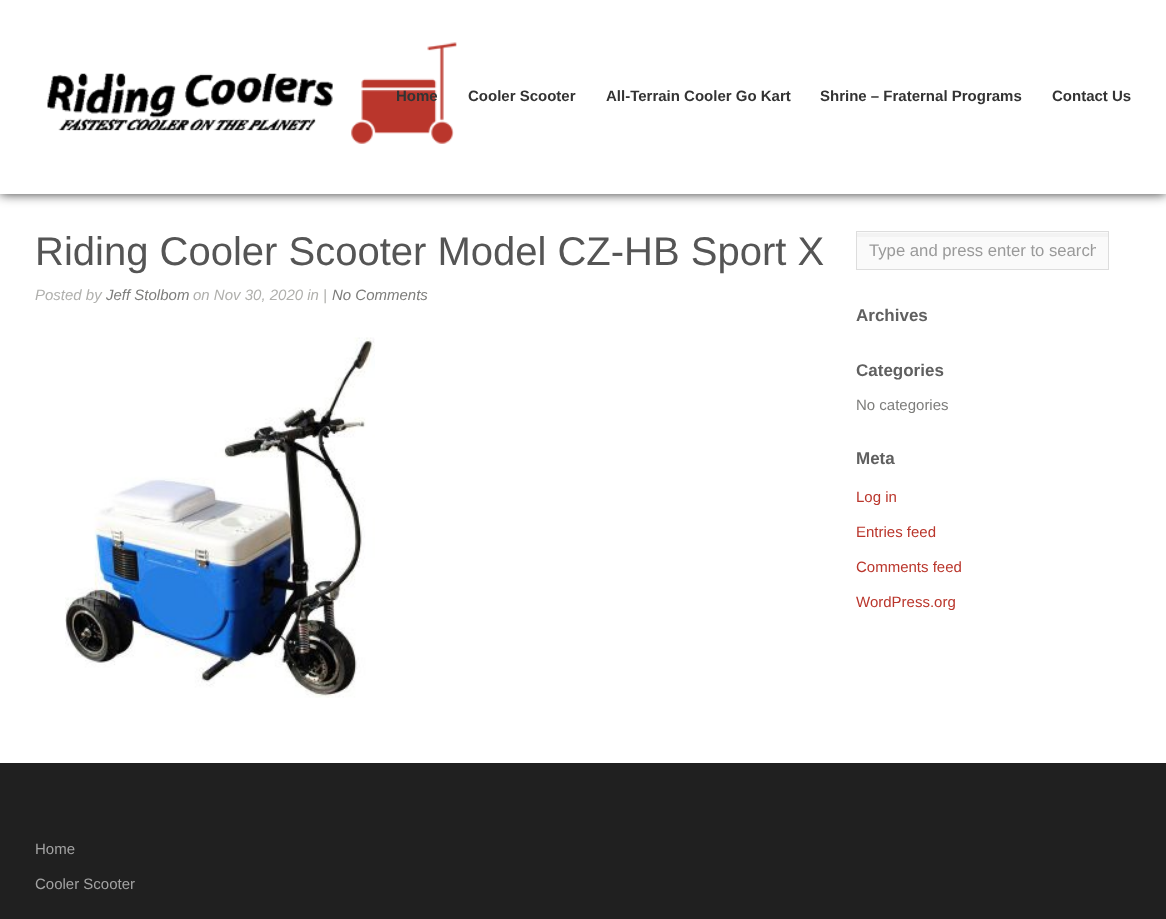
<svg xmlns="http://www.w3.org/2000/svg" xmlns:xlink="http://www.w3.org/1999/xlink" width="1166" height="919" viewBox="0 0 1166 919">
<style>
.cls-1{font:bold 15px Liberation Sans;fill:#333333}
.cls-2{font:40px Liberation Sans;fill:#555555}
.cls-3{font:italic 15px Liberation Sans;fill:#b0b0ad}
.cls-4{font:italic 15px Liberation Sans;fill:#7d7d7b}
.cls-5{font:16.7px Liberation Sans;fill:#9a9a9a}
.cls-6{font:bold 17px Liberation Sans;fill:#606060}
.cls-7{font:15px Liberation Sans;fill:#7d7d7b}
.cls-8{font:15px Liberation Sans;fill:#ba362c}
.cls-9{font:15px Liberation Sans;fill:#a2a2a2}
</style>
<defs>
<clipPath id="clip1"><rect x="869" y="241" width="227" height="19"/></clipPath>
</defs>
<rect width="100%" height="100%" fill="#202020"/>
<rect fill="#ffffff" x="0" y="194" width="1166" height="569"/>
<rect fill="#333333" filter="blur(6px)" x="0" y="0" width="1166" height="194"/>
<rect fill="#ffffff" x="0" y="0" width="1166" height="194"/>
<image xlink:href="image0.png" x="47" y="42" width="410" height="102"/>
<image xlink:href="image1.png" x="65" y="337" width="310" height="361"/>
<rect fill="#fafafa" x="857" y="232" width="251" height="37"/>
<rect fill="#f3f3f3" x="856" y="233" width="253" height="4"/>
<rect fill="none" stroke="#dddddd" x="856.5" y="231.5" width="252" height="38"/>
<text class="cls-1" x="396" y="101">Home</text>
<text class="cls-1" x="468" y="101">Cooler Scooter</text>
<text class="cls-1" x="606" y="101">All-Terrain Cooler Go Kart</text>
<text class="cls-1" x="820" y="101">Shrine – Fraternal Programs</text>
<text class="cls-1" x="1052" y="101">Contact Us</text>
<text class="cls-2" x="35" y="265">Riding Cooler Scooter Model CZ-HB Sport X</text>
<text class="cls-3" x="35" y="300">Posted by</text>
<text class="cls-4" x="106" y="300">Jeff Stolbom</text>
<text class="cls-3" x="193" y="300">on Nov 30, 2020 in |</text>
<text class="cls-4" x="332" y="300">No Comments</text>
<g clip-path="url(#clip1)">
<text class="cls-5" x="869" y="256">Type and press enter to search</text>
</g>
<text class="cls-6" x="856" y="321">Archives</text>
<text class="cls-6" x="856" y="376">Categories</text>
<text class="cls-7" x="856" y="410">No categories</text>
<text class="cls-6" x="856" y="464">Meta</text>
<text class="cls-8" x="856" y="502">Log in</text>
<text class="cls-8" x="856" y="537">Entries feed</text>
<text class="cls-8" x="856" y="572">Comments feed</text>
<text class="cls-8" x="856" y="607">WordPress.org</text>
<text class="cls-9" x="35" y="854">Home</text>
<text class="cls-9" x="35" y="889">Cooler Scooter</text>
</svg>
